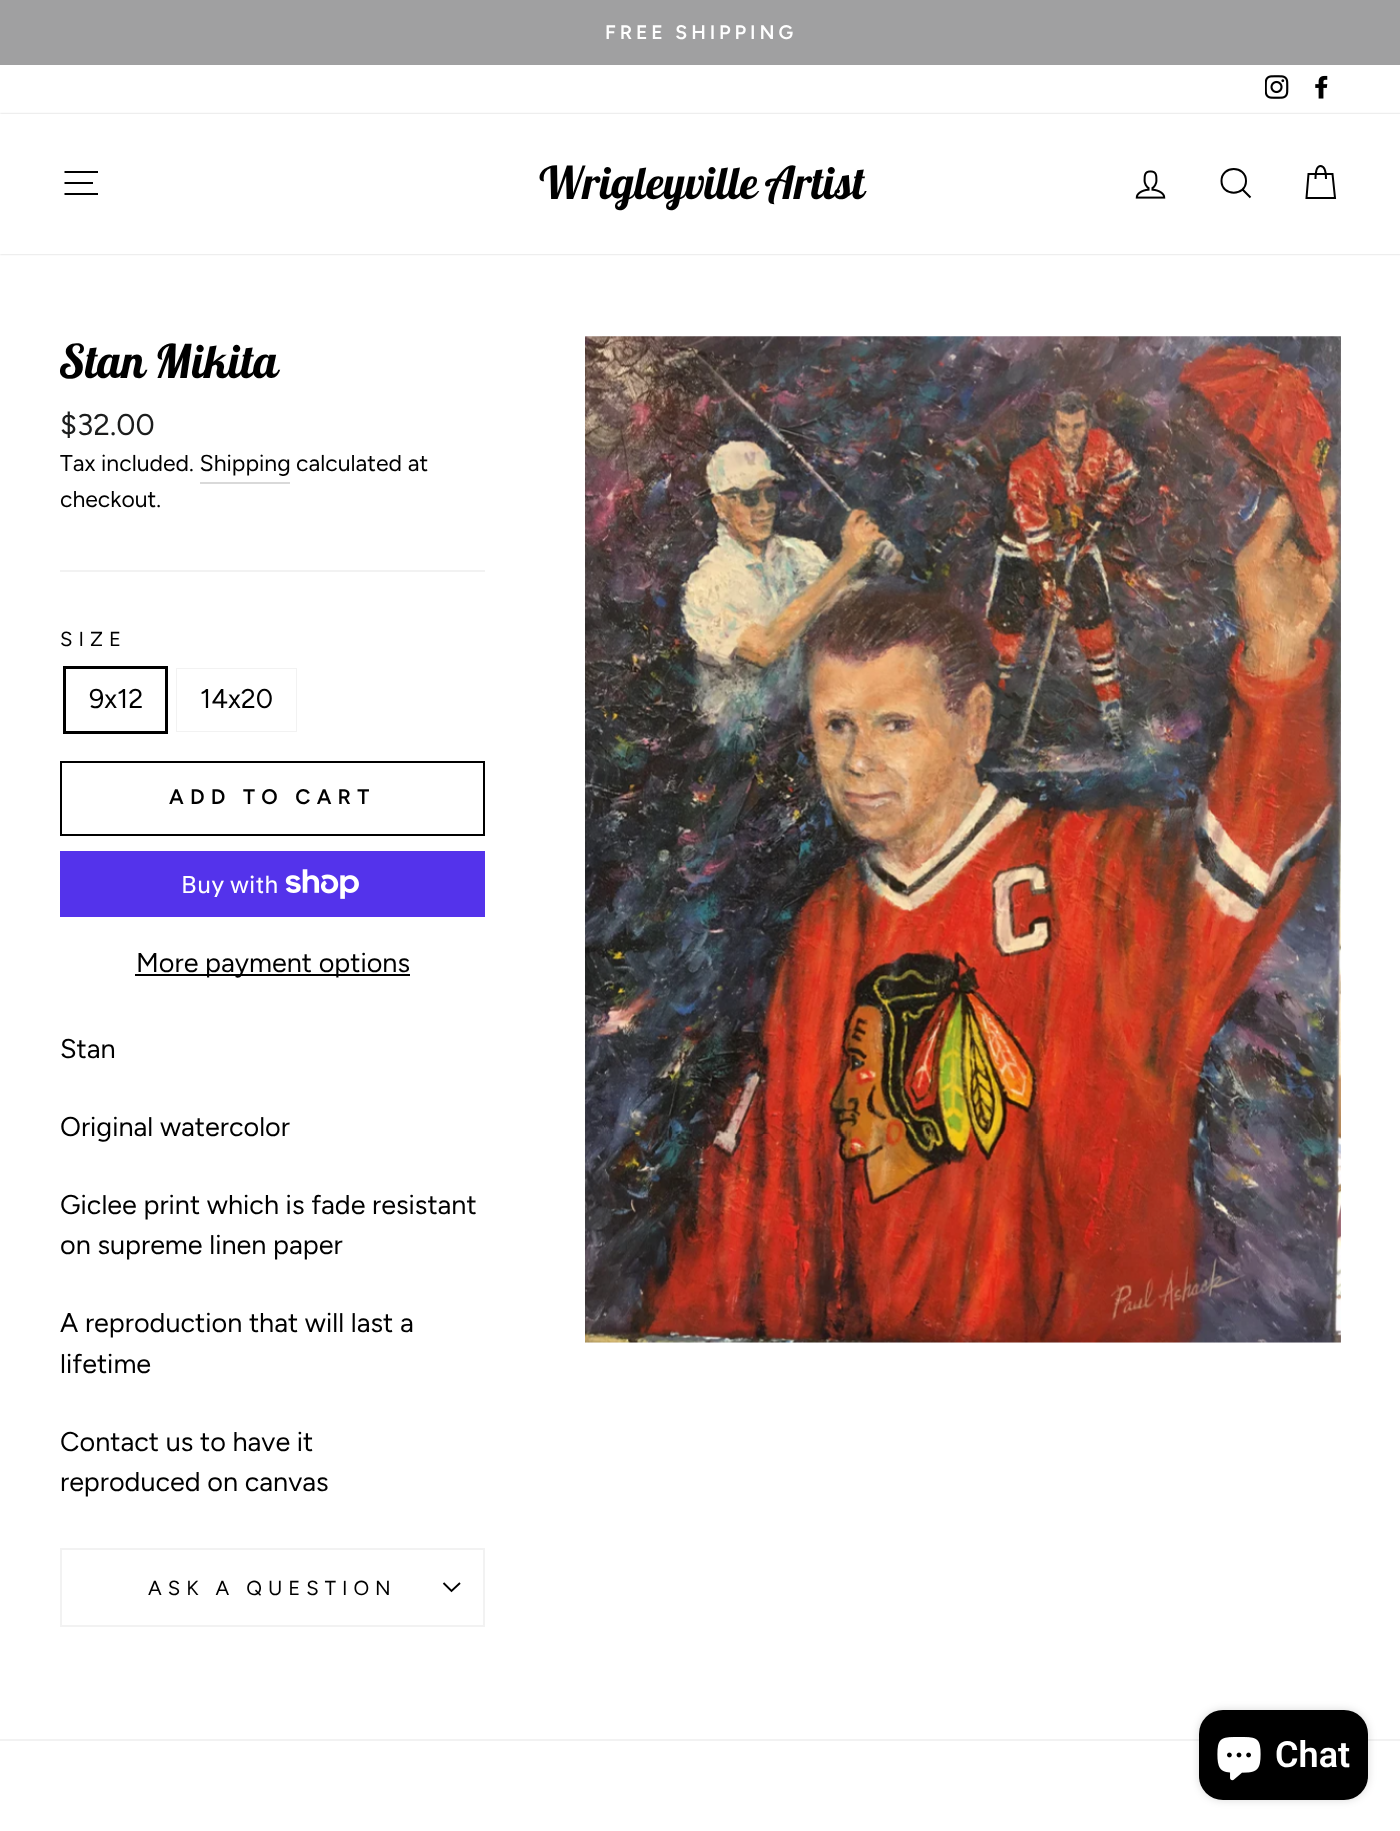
<svg xmlns="http://www.w3.org/2000/svg" xmlns:xlink="http://www.w3.org/1999/xlink" width="1400" height="1831" viewBox="0 0 1400 1831">
<style>*{font-kerning:none!important;font-variant-ligatures:none!important}</style>
<style>
.cls-1{font:600 19.5px Figtree;letter-spacing:3.9px;fill:#ffffff}
.cls-2{font:italic bold 45px Lobster Two;fill:#000000}
.cls-3{font:italic bold 46.5px Lobster Two;fill:#000000}
.cls-4{font:30px Figtree;fill:#1c1d1d}
.cls-5{font:23px Figtree;fill:#000000}
.cls-6{font:20.25px Figtree;letter-spacing:6px;fill:#000000}
.cls-7{font:27px Figtree;fill:#000000}
.cls-8{font:600 21px Figtree;letter-spacing:6.25px;fill:#000000}
.cls-9{font:24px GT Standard;fill:#ffffff}
.cls-10{font:600 36px Roboto;fill:#ffffff}
</style>
<rect width="100%" height="100%" fill="#ffffff"/>
<rect fill="#a0a0a1" x="0" y="0" width="1400" height="65"/>
<image xlink:href="image0.png" x="1265" y="75" width="24" height="24"/>
<image xlink:href="image1.png" x="1315" y="75" width="13" height="24"/>
<rect fill="#000000" fill-opacity="0.2" filter="blur(1px)" x="0" y="114" width="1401" height="140"/>
<rect fill="#ffffff" x="0" y="114" width="1400" height="140"/>
<path fill="none" stroke="#000000" stroke-width="2" d="M64.5 172H98M64.5 183H93M64.5 194H98"/>
<image xlink:href="image2.png" x="1135" y="170" width="31" height="29"/>
<path fill="none" stroke="#000000" stroke-width="2" d="M1246 181C1246 196.5 1221.5 196.5 1221.5 181C1221.5 165 1246 165 1246 181ZM1250.5 197.5L1242.5 189.5"/>
<path fill="none" stroke="#000000" stroke-width="2" d="M1315.5 179C1315.5 168.5 1317.5 166 1320.5 166C1323.5 166 1326 168.5 1326 179M1308.5 174H1332.5L1335 198H1306.5Z"/>
<rect fill="#d9d9d9" x="200" y="482" width="90" height="2"/>
<rect fill="#f2f2f2" x="60" y="570" width="425" height="2"/>
<rect fill="none" stroke="#000000" stroke-width="3" x="64.5" y="667.5" width="102" height="65"/>
<rect fill="none" stroke="#f2f2f2" stroke-width="2" x="177" y="669" width="119" height="62"/>
<rect fill="#ffffff" x="177" y="669" width="119" height="62"/>
<rect fill="none" stroke="#000000" stroke-width="2" x="61" y="762" width="423" height="73"/>
<rect fill="#5433eb" x="60" y="851" width="425" height="66"/>
<image xlink:href="image3.png" x="285" y="869" width="74" height="30"/>
<rect fill="#000000" x="135" y="974" width="275" height="2"/>
<rect fill="#f2f2f2" x="60" y="1625" width="425" height="2"/>
<rect fill="#f2f2f2" x="60" y="1548" width="425" height="2"/>
<rect fill="#f2f2f2" x="483" y="1548" width="2" height="77"/>
<rect fill="#f2f2f2" x="60" y="1548" width="2" height="77"/>
<path fill="none" stroke="#000000" stroke-width="1.9" d="M443.5 1583L451.5 1591L460 1583"/>
<rect fill="#f7f7f9" x="585" y="336" width="756" height="1007"/>
<image xlink:href="image4.png" x="585" y="336" width="756" height="1007"/>
<rect fill="#f2f2f2" x="0" y="1739" width="1400" height="2"/>
<rect fill="#000000" fill-opacity="0.15" filter="blur(4px)" x="1199" y="1710" width="169" height="90" rx="24"/>
<rect fill="#000000" x="1199" y="1710" width="169" height="90" rx="24"/>
<image xlink:href="image5.png" x="1217" y="1737" width="44" height="44"/>
<text class="cls-1" x="605" y="39">FREE SHIPPING</text>
<text class="cls-2" x="537" y="199">Wrigleyville Artist</text>
<text class="cls-3" x="60" y="378">Stan Mikita</text>
<text class="cls-4" x="60" y="435">$32.00</text>
<text class="cls-5" x="60" y="471">Tax included. Shipping</text>
<text class="cls-5" x="296" y="471">calculated at</text>
<text class="cls-5" x="60" y="507">checkout.</text>
<text class="cls-6" x="60" y="646">SIZE</text>
<text class="cls-7" x="89" y="708">9x12</text>
<text class="cls-7" x="200" y="708">14x20</text>
<text class="cls-8" x="169" y="804">ADD TO CART</text>
<text class="cls-9" x="181" y="893">Buy with</text>
<text class="cls-7" x="136" y="972">More payment options</text>
<text class="cls-7" x="60" y="1058">Stan</text>
<text class="cls-7" x="60" y="1136">Original watercolor</text>
<text class="cls-7"><tspan x="60" y="1214">Giclee print which is fade resistant</tspan><tspan x="60" y="1254">on supreme linen paper</tspan></text>
<text class="cls-7"><tspan x="60" y="1332">A reproduction that will last a</tspan><tspan x="60" y="1373">lifetime</tspan></text>
<text class="cls-7"><tspan x="60" y="1451">Contact us to have it</tspan><tspan x="60" y="1491">reproduced on canvas</tspan></text>
<text class="cls-6" x="148" y="1595">ASK A QUESTION</text>
<text class="cls-10" x="1275" y="1767">Chat</text>
</svg>
